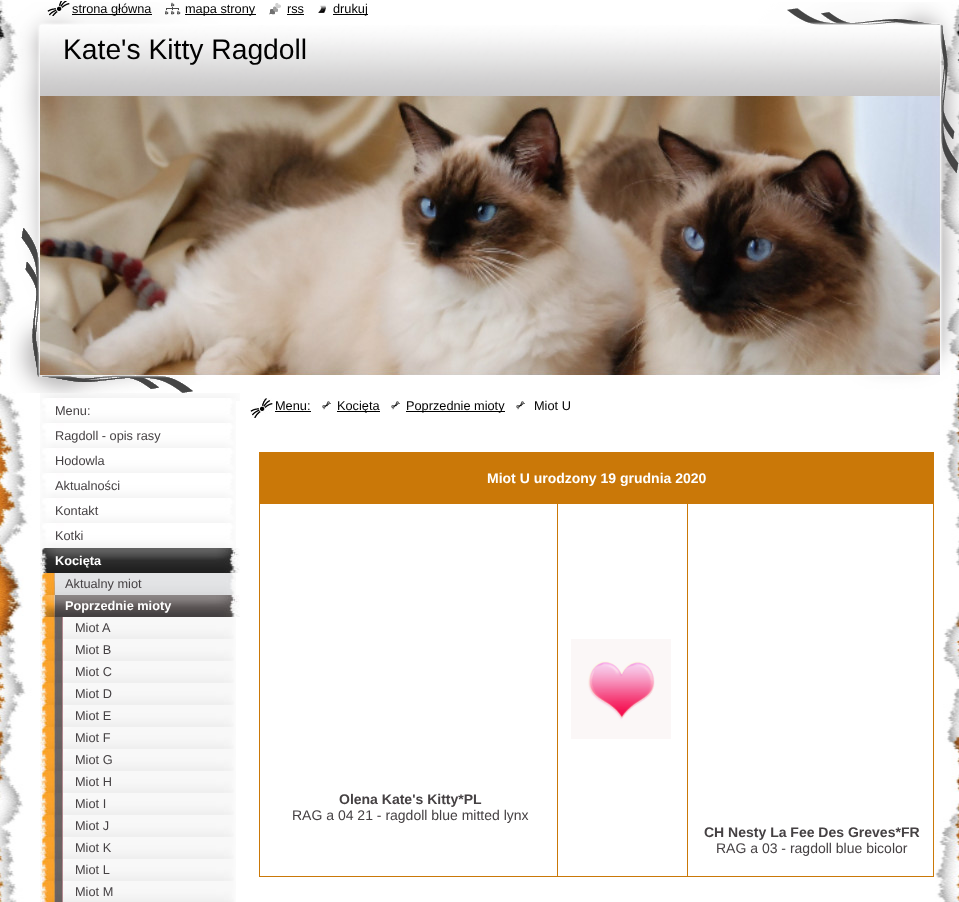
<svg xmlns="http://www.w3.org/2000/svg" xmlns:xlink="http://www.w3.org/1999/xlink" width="959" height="902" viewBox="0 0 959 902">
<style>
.cls-1{font:12.75px Liberation Sans;fill:#000000}
.cls-2{font:28.25px Liberation Sans;fill:#000000}
.cls-3{font:12.75px Liberation Sans;fill:#454143}
.cls-4{font:bold 12.75px Liberation Sans;fill:#ffffff}
.cls-5{font:bold 14px Liberation Sans;fill:#ffffff}
.cls-6{font:bold 14px Liberation Sans;fill:#454143}
.cls-7{font:14px Liberation Sans;fill:#454143}
</style>
<rect width="100%" height="100%" fill="#ffffff"/>
<image xlink:href="image0.png" x="0" y="0" width="959" height="902"/>
<image xlink:href="image1.png" x="0" y="8" width="959" height="464"/>
<image xlink:href="image6.png" x="10" y="2" width="949" height="391"/>
<image xlink:href="image2.png" x="47" y="1" width="23" height="15"/>
<rect fill="#000000" x="72" y="14" width="80" height="1"/>
<image xlink:href="image3.png" x="165" y="2" width="16" height="13"/>
<rect fill="#000000" x="185" y="14" width="71" height="1"/>
<image xlink:href="image4.png" x="269" y="3" width="12" height="12"/>
<rect fill="#000000" x="287" y="14" width="17" height="1"/>
<image xlink:href="image5.png" x="318" y="5" width="8" height="8"/>
<rect fill="#000000" x="333" y="14" width="35" height="1"/>
<image xlink:href="image7.png" x="40" y="96" width="900" height="279"/>
<image xlink:href="image8.png" x="40" y="393" width="200" height="8"/>
<image xlink:href="image9.png" x="40" y="398" width="196" height="25"/>
<image xlink:href="image9.png" x="40" y="423" width="196" height="25"/>
<image xlink:href="image9.png" x="40" y="448" width="196" height="25"/>
<image xlink:href="image9.png" x="40" y="473" width="196" height="25"/>
<image xlink:href="image9.png" x="40" y="498" width="196" height="25"/>
<image xlink:href="image9.png" x="40" y="523" width="196" height="25"/>
<image xlink:href="image10.png" x="40" y="548" width="200" height="25"/>
<image xlink:href="image11.png" x="40" y="573" width="196" height="22"/>
<image xlink:href="image12.png" x="40" y="595" width="200" height="22"/>
<image xlink:href="image13.png" x="40" y="617" width="196" height="22"/>
<image xlink:href="image13.png" x="40" y="639" width="196" height="22"/>
<image xlink:href="image13.png" x="40" y="661" width="196" height="22"/>
<image xlink:href="image13.png" x="40" y="683" width="196" height="22"/>
<image xlink:href="image13.png" x="40" y="705" width="196" height="22"/>
<image xlink:href="image13.png" x="40" y="727" width="196" height="22"/>
<image xlink:href="image13.png" x="40" y="749" width="196" height="22"/>
<image xlink:href="image13.png" x="40" y="771" width="196" height="22"/>
<image xlink:href="image13.png" x="40" y="793" width="196" height="22"/>
<image xlink:href="image13.png" x="40" y="815" width="196" height="22"/>
<image xlink:href="image13.png" x="40" y="837" width="196" height="22"/>
<image xlink:href="image13.png" x="40" y="859" width="196" height="22"/>
<image xlink:href="image14.png" x="40" y="881" width="196" height="21"/>
<image xlink:href="image15.png" x="250" y="398" width="23" height="20"/>
<rect fill="#000000" x="275" y="411" width="36" height="1"/>
<image xlink:href="image16.png" x="322" y="401" width="9" height="9"/>
<rect fill="#000000" x="337" y="411" width="43" height="1"/>
<image xlink:href="image16.png" x="391" y="401" width="9" height="9"/>
<rect fill="#000000" x="406" y="411" width="99" height="1"/>
<image xlink:href="image16.png" x="516" y="401" width="9" height="9"/>
<rect fill="#ca7808" x="260" y="453" width="674" height="51"/>
<rect fill="#ca7808" x="259" y="452" width="675" height="1"/>
<rect fill="#ca7808" x="259" y="503" width="1" height="1"/>
<rect fill="#ca7808" x="933" y="503" width="1" height="374"/>
<rect fill="#ca7808" x="687" y="876" width="247" height="1"/>
<rect fill="#ca7808" x="687" y="503" width="1" height="374"/>
<rect fill="#ca7808" x="557" y="876" width="131" height="1"/>
<rect fill="#ca7808" x="557" y="503" width="1" height="374"/>
<rect fill="#ca7808" x="259" y="876" width="299" height="1"/>
<rect fill="#ca7808" x="259" y="503" width="1" height="374"/>
<rect fill="#ca7808" x="259" y="452" width="1" height="52"/>
<image xlink:href="image17.png" x="571" y="639" width="100" height="100"/>
<text class="cls-1" x="72" y="13">strona główna</text>
<text class="cls-1" x="185" y="13">mapa strony</text>
<text class="cls-1" x="287" y="13">rss</text>
<text class="cls-1" x="333" y="13">drukuj</text>
<text class="cls-2" x="63" y="59">Kate's Kitty Ragdoll</text>
<text class="cls-3"><tspan x="55" y="415">Menu:</tspan><tspan x="55" y="440">Ragdoll - opis rasy</tspan><tspan x="55" y="465">Hodowla</tspan><tspan x="55" y="490">Aktualności</tspan><tspan x="55" y="515">Kontakt</tspan><tspan x="55" y="540">Kotki</tspan></text>
<text class="cls-4" x="55" y="565">Kocięta</text>
<text class="cls-3" x="65" y="588">Aktualny miot</text>
<text class="cls-4" x="65" y="610">Poprzednie mioty</text>
<text class="cls-3"><tspan x="75" y="632">Miot A</tspan><tspan x="75" y="654">Miot B</tspan><tspan x="75" y="676">Miot C</tspan><tspan x="75" y="698">Miot D</tspan><tspan x="75" y="720">Miot E</tspan><tspan x="75" y="742">Miot F</tspan><tspan x="75" y="764">Miot G</tspan><tspan x="75" y="786">Miot H</tspan><tspan x="75" y="808">Miot I</tspan><tspan x="75" y="830">Miot J</tspan><tspan x="75" y="852">Miot K</tspan><tspan x="75" y="874">Miot L</tspan><tspan x="75" y="896">Miot M</tspan></text>
<text class="cls-1" x="275" y="410">Menu:</text>
<text class="cls-1" x="337" y="410">Kocięta</text>
<text class="cls-1" x="406" y="410">Poprzednie mioty</text>
<text class="cls-1" x="534" y="410">Miot U</text>
<text class="cls-5" x="487" y="483">Miot U urodzony 19 grudnia 2020</text>
<text class="cls-6" x="339" y="804">Olena Kate's Kitty*PL</text>
<text class="cls-7" x="292" y="820">RAG a 04 21 - ragdoll blue mitted lynx</text>
<text class="cls-6" x="704" y="837">CH Nesty La Fee Des Greves*FR</text>
<text class="cls-7" x="716" y="853">RAG a 03 - ragdoll blue bicolor</text>
</svg>
